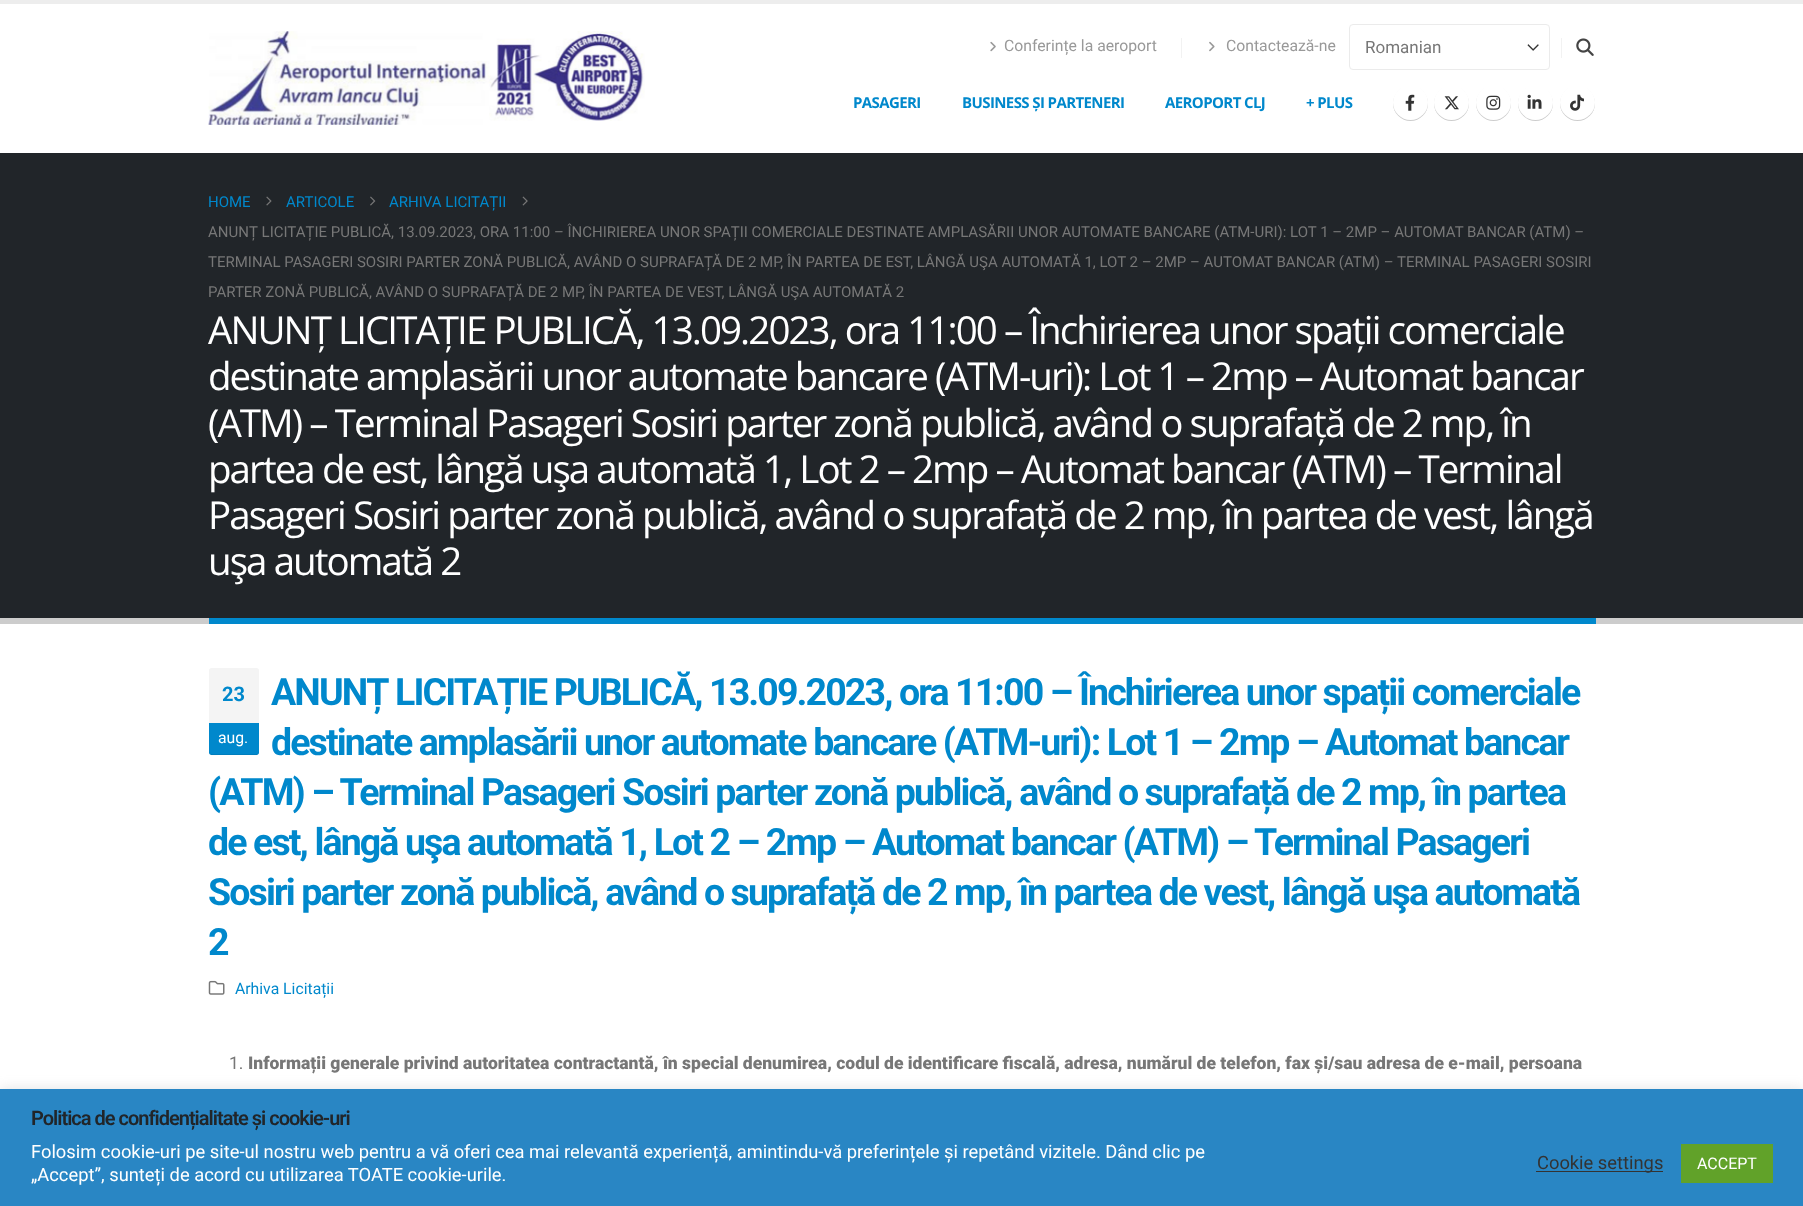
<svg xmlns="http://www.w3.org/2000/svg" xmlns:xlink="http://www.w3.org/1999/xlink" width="1803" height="1206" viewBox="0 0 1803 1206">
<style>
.cls-1{font:15.75px Roboto;fill:#999999}
.cls-2{font:17px Roboto;fill:#777777}
.cls-3{font:bold 15px Open Sans;letter-spacing:-0.6px;fill:#0088cc}
.cls-4{font:15px Roboto;fill:#0088cc}
.cls-5{font:15px Roboto;fill:#777777}
.cls-6{font:38.5px Open Sans;letter-spacing:-1.93px;fill:#ffffff}
.cls-7{font:bold 37.5px Roboto;letter-spacing:-1.88px;fill:#0088cc}
.cls-8{font:15.75px Roboto;fill:#0088cc}
.cls-9{font:17.5px Roboto;fill:#777777}
.cls-10{font:900 17.5px Roboto;fill:#777777}
.cls-11{font:bold 20px Roboto;fill:#0088cc}
.cls-12{font:15.75px Roboto;fill:#ffffff}
.cls-13{font:600 20px Roboto;letter-spacing:-1px;fill:#212529}
.cls-14{font:18.33px Roboto;fill:#ffffff}
.cls-15{font:18.33px Roboto;fill:#333333}
.cls-16{font:16px Roboto;fill:#ffffff}
</style>
<rect width="100%" height="100%" fill="#ffffff"/>
<rect fill="#ededed" x="0" y="0" width="1803" height="4"/>
<image xlink:href="image0.png" x="208" y="31" width="437" height="94"/>
<image xlink:href="image1.png" x="990" y="41" width="6" height="11"/>
<rect fill="#f2f2f2" x="1181" y="38" width="1" height="20"/>
<image xlink:href="image2.png" x="1209" y="41" width="6" height="11"/>
<image xlink:href="image3.png" x="1527" y="44" width="12" height="7"/>
<rect fill="none" stroke="#ebebeb" x="1349.5" y="24.5" width="200" height="45" rx="3.5"/>
<rect fill="#f2f2f2" x="1561" y="38" width="1" height="20"/>
<image xlink:href="image4.png" x="1576" y="38" width="18" height="18"/>
<rect fill="#000000" fill-opacity="0.2" filter="blur(0.5px)" x="1393" y="86" width="35" height="35" rx="17.5"/>
<circle fill="#ffffff" cx="1410.5" cy="102.5" r="17.5"/>
<image xlink:href="image5.png" x="1405" y="94" width="10" height="17"/>
<rect fill="#000000" fill-opacity="0.2" filter="blur(0.5px)" x="1434" y="86" width="35" height="35" rx="17.5"/>
<circle fill="#ffffff" cx="1451.5" cy="102.5" r="17.5"/>
<image xlink:href="image6.png" x="1444" y="96" width="15" height="14"/>
<rect fill="#000000" fill-opacity="0.2" filter="blur(0.5px)" x="1476" y="86" width="35" height="35" rx="17.5"/>
<circle fill="#ffffff" cx="1493.5" cy="102.5" r="17.5"/>
<image xlink:href="image7.png" x="1486" y="95" width="15" height="15"/>
<rect fill="#000000" fill-opacity="0.2" filter="blur(0.5px)" x="1518" y="86" width="35" height="35" rx="17.5"/>
<circle fill="#ffffff" cx="1535.5" cy="102.5" r="17.5"/>
<image xlink:href="image8.png" x="1527" y="94" width="15" height="15"/>
<rect fill="#000000" fill-opacity="0.2" filter="blur(0.5px)" x="1560" y="86" width="35" height="35" rx="17.5"/>
<circle fill="#ffffff" cx="1577.5" cy="102.5" r="17.5"/>
<image xlink:href="image9.png" x="1570" y="94" width="14" height="17"/>
<rect fill="#212529" x="0" y="153" width="1803" height="465"/>
<rect fill="#cccccc" x="0" y="618" width="1803" height="6"/>
<image xlink:href="image10.png" x="266" y="196" width="6" height="10"/>
<image xlink:href="image11.png" x="370" y="196" width="6" height="10"/>
<image xlink:href="image12.png" x="522" y="196" width="6" height="10"/>
<rect fill="#0088cc" x="209" y="618" width="1387" height="6"/>
<image xlink:href="image13.png" x="208" y="980" width="17" height="15"/>
<path fill="#f4f4f4" d="M211.5 668H256.5C258 668 259 669 259 670.5V723H209V670.5C209 669 210 668 211.5 668Z"/>
<path fill="#0088cc" d="M209 723H259V752.5C259 754 258 755 256.5 755H211.5C210 755 209 754 209 752.5Z"/>
<path fill="#000000" fill-opacity="0.07" d="M209 751C209 757 214 755 219 755H249C254 755 259 757 259 751C259 753 258 754 256 754H211C210 754 209 753 209 751Z"/>
<rect fill="#acabab" fill-opacity="0.3" filter="blur(6px)" x="0" y="1088" width="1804" height="117"/>
<rect fill="#2986c4" x="0" y="1089" width="1803" height="117"/>
<rect fill="#333333" x="1536" y="1171" width="127" height="1"/>
<rect fill="#61a229" x="1681" y="1144" width="92" height="39"/>
<text class="cls-1" x="1004" y="51">Conferințe la aeroport</text>
<text class="cls-1" x="1226" y="51">Contactează-ne</text>
<text class="cls-2" x="1365" y="53">Romanian</text>
<text class="cls-3" x="853" y="108">PASAGERI</text>
<text class="cls-3" x="962" y="108">BUSINESS ȘI PARTENERI</text>
<text class="cls-3" x="1165" y="108">AEROPORT CLJ</text>
<text class="cls-3" x="1306" y="108">+ PLUS</text>
<text class="cls-4" x="208" y="207">HOME</text>
<text class="cls-4" x="286" y="207">ARTICOLE</text>
<text class="cls-4" x="389" y="207">ARHIVA LICITAȚII</text>
<text class="cls-5" x="208" y="237">ANUNȚ LICITAȚIE PUBLICĂ, 13.09.2023, ORA 11:00 – ÎNCHIRIEREA UNOR SPAȚII COMERCIALE DESTINATE AMPLASĂRII UNOR AUTOMATE BANCARE (ATM-URI): LOT 1 – 2MP – AUTOMAT BANCAR (ATM) –</text>
<text class="cls-5" x="208" y="267">TERMINAL PASAGERI SOSIRI PARTER ZONĂ PUBLICĂ, AVÂND O SUPRAFAȚĂ DE 2 MP, ÎN PARTEA DE EST, LÂNGĂ UŞA AUTOMATĂ 1, LOT 2 – 2MP – AUTOMAT BANCAR (ATM) – TERMINAL PASAGERI SOSIRI</text>
<text class="cls-5" x="208" y="297">PARTER ZONĂ PUBLICĂ, AVÂND O SUPRAFAȚĂ DE 2 MP, ÎN PARTEA DE VEST, LÂNGĂ UŞA AUTOMATĂ 2</text>
<text class="cls-6"><tspan x="208" y="344">ANUNȚ LICITAȚIE PUBLICĂ, 13.09.2023, ora 11:00 – Închirierea unor spații comerciale</tspan><tspan x="208" y="390">destinate amplasării unor automate bancare (ATM-uri): Lot 1 – 2mp – Automat bancar</tspan><tspan x="208" y="437">(ATM) – Terminal Pasageri Sosiri parter zonă publică, având o suprafață de 2 mp, în</tspan><tspan x="208" y="483">partea de est, lângă uşa automată 1, Lot 2 – 2mp – Automat bancar (ATM) – Terminal</tspan><tspan x="208" y="529">Pasageri Sosiri parter zonă publică, având o suprafață de 2 mp, în partea de vest, lângă</tspan><tspan x="208" y="575">uşa automată 2</tspan></text>
<text class="cls-7"><tspan x="271" y="705">ANUNȚ LICITAȚIE PUBLICĂ, 13.09.2023, ora 11:00 – Închirierea unor spații comerciale</tspan><tspan x="271" y="755">destinate amplasării unor automate bancare (ATM-uri): Lot 1 – 2mp – Automat bancar</tspan></text>
<text class="cls-7"><tspan x="208" y="805">(ATM) – Terminal Pasageri Sosiri parter zonă publică, având o suprafață de 2 mp, în partea</tspan><tspan x="208" y="855">de est, lângă uşa automată 1, Lot 2 – 2mp – Automat bancar (ATM) – Terminal Pasageri</tspan><tspan x="208" y="905">Sosiri parter zonă publică, având o suprafață de 2 mp, în partea de vest, lângă uşa automată</tspan><tspan x="208" y="955">2</tspan></text>
<text class="cls-8" x="235" y="994">Arhiva Licitații</text>
<text class="cls-9" x="229" y="1069">1.</text>
<text class="cls-10" x="248" y="1069">Informații generale privind autoritatea contractantă, în special denumirea, codul de identificare fiscală, adresa, numărul de telefon, fax și/sau adresa de e-mail, persoana</text>
<text class="cls-11" x="222" y="701">23</text>
<text class="cls-12" x="218" y="743">aug.</text>
<text class="cls-13" x="31" y="1125">Politica de confidențialitate și cookie-uri</text>
<text class="cls-14"><tspan x="31" y="1158">Folosim cookie-uri pe site-ul nostru web pentru a vă oferi cea mai relevantă experiență, amintindu-vă preferințele și repetând vizitele. Dând clic pe</tspan><tspan x="31" y="1181">„Accept”, sunteți de acord cu utilizarea TOATE cookie-urile.</tspan></text>
<text class="cls-15" x="1537" y="1169">Cookie settings</text>
<text class="cls-16" x="1697" y="1169">ACCEPT</text>
</svg>
